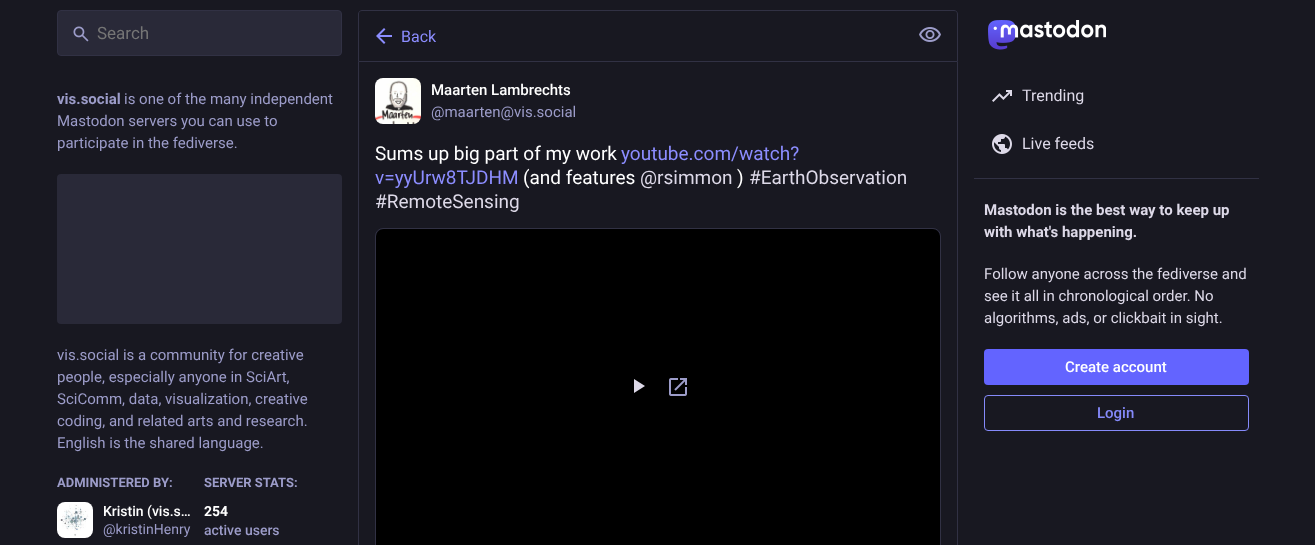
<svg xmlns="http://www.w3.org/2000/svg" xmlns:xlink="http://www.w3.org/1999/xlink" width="1315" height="545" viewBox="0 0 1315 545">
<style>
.cls-1{font:17px Roboto;fill:#757575}
.cls-2{font:bold 15px Roboto;fill:#9c9cc9}
.cls-3{font:15px Roboto;fill:#9c9cc9}
.cls-4{font:bold 13px Roboto;fill:#9c9cc9}
.cls-5{font:500 14px Roboto;fill:#ffffff}
.cls-6{font:14px Roboto;fill:#9c9cc9}
.cls-7{font:bold 14px Roboto;fill:#ffffff}
.cls-8{font:500 14px Roboto;fill:#9c9cc9}
.cls-9{font:16px Roboto;fill:#8c8dff}
.cls-10{font:500 15px Roboto;fill:#ffffff}
.cls-11{font:19px Roboto;fill:#ffffff}
.cls-12{font:19px Roboto;fill:#8c8dff}
.cls-13{font:19px Roboto;fill:#ddd9e8}
.cls-14{font:16px Roboto;fill:#ddd9e8}
.cls-15{font:bold 15px Roboto;fill:#ddd9e8}
.cls-16{font:15px Roboto;fill:#ddd9e8}
.cls-17{font:500 15px Roboto;fill:#858afa}
</style>
<defs>
<clipPath id="clip1"><rect x="376" y="229" width="564" height="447" rx="7"/></clipPath>
</defs>
<rect width="100%" height="100%" fill="#181821"/>
<rect fill="#292938" stroke="#313144" x="57.5" y="10.5" width="284" height="45" rx="3.5"/>
<image xlink:href="image0.png" x="73" y="26" width="16" height="16"/>
<rect fill="#292938" x="57" y="174" width="285" height="150" rx="4"/>
<rect fill="#20202c" x="57" y="502" width="36" height="36" rx="8"/>
<image xlink:href="image1.png" x="57" y="502" width="36" height="36"/>
<path fill="none" stroke="#313144" d="M362 10.5H954C956 10.5 957.5 12 957.5 14V61.5H358.5V14C358.5 12 360 10.5 362 10.5Z"/>
<image xlink:href="image2.png" x="376" y="28" width="16" height="16"/>
<image xlink:href="image3.png" x="919" y="27" width="22" height="15"/>
<path fill="#313144" fill-rule="evenodd" d="M358 62H958V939C958 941 956 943 954 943H362C360 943 358 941 358 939ZM359 62H957V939C957 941 956 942 954 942H362C360 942 359 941 359 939Z"/>
<rect fill="#20202c" x="375" y="78" width="46" height="46" rx="8"/>
<image xlink:href="image4.png" x="375" y="78" width="46" height="46"/>
<rect fill="none" stroke="#313144" x="375.5" y="228.5" width="565" height="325" rx="7.5"/>
<g clip-path="url(#clip1)">
<path fill="#000000" d="M384 229H932C936.5 229 940 232.5 940 237V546H376V237C376 232.5 379.5 229 384 229Z"/>
</g>
<path fill="#ddd9e8" d="M634 393V379L645 386Z"/>
<image xlink:href="image5.png" x="669" y="378" width="18" height="18"/>
<image xlink:href="image6.png" x="988" y="20" width="118" height="30"/>
<image xlink:href="image7.png" x="992" y="90" width="20" height="12"/>
<image xlink:href="image8.png" x="992" y="134" width="20" height="20"/>
<rect fill="#313144" x="974" y="178" width="285" height="1"/>
<rect fill="#6364ff" x="984" y="349" width="265" height="36" rx="4"/>
<rect fill="none" stroke="#858afa" x="984.5" y="395.5" width="264" height="35" rx="3.5"/>
<text class="cls-1" x="97" y="39">Search</text>
<text class="cls-2" x="57" y="104">vis.social</text>
<text class="cls-3" x="124" y="104">is one of the many independent</text>
<text class="cls-3"><tspan x="57" y="126">Mastodon servers you can use to</tspan><tspan x="57" y="148">participate in the fediverse.</tspan></text>
<text class="cls-3"><tspan x="57" y="360">vis.social is a community for creative</tspan><tspan x="57" y="382">people, especially anyone in SciArt,</tspan><tspan x="57" y="404">SciComm, data, visualization, creative</tspan><tspan x="57" y="426">coding, and related arts and research.</tspan><tspan x="57" y="448">English is the shared language.</tspan></text>
<text class="cls-4" x="57" y="487">ADMINISTERED BY:</text>
<text class="cls-5" x="103" y="516">Kristin (vis.s…</text>
<text class="cls-6" x="103" y="534">@kristinHenry</text>
<text class="cls-4" x="204" y="487">SERVER STATS:</text>
<text class="cls-7" x="204" y="516">254</text>
<text class="cls-8" x="204" y="535">active users</text>
<text class="cls-9" x="401" y="42">Back</text>
<text class="cls-10" x="431" y="95">Maarten Lambrechts</text>
<text class="cls-3" x="431" y="117">@maarten@vis.social</text>
<text class="cls-11" x="375" y="160">Sums up big part of my work</text>
<text class="cls-12" x="621" y="160">youtube.com/watch?</text>
<text class="cls-12" x="375" y="184">v=yyUrw8TJDHM</text>
<text class="cls-11" x="523" y="184">(and features</text>
<text class="cls-13" x="640" y="184">@rsimmon</text>
<text class="cls-11" x="737" y="184">)</text>
<text class="cls-13" x="749" y="184">#EarthObservation</text>
<text class="cls-13" x="375" y="208">#RemoteSensing</text>
<text class="cls-14" x="1022" y="101">Trending</text>
<text class="cls-14" x="1022" y="149">Live feeds</text>
<text class="cls-15"><tspan x="984" y="215">Mastodon is the best way to keep up</tspan><tspan x="984" y="237">with what's happening.</tspan></text>
<text class="cls-16"><tspan x="984" y="279">Follow anyone across the fediverse and</tspan><tspan x="984" y="301">see it all in chronological order. No</tspan><tspan x="984" y="323">algorithms, ads, or clickbait in sight.</tspan></text>
<text class="cls-10" x="1065" y="372">Create account</text>
<text class="cls-17" x="1097" y="418">Login</text>
</svg>
